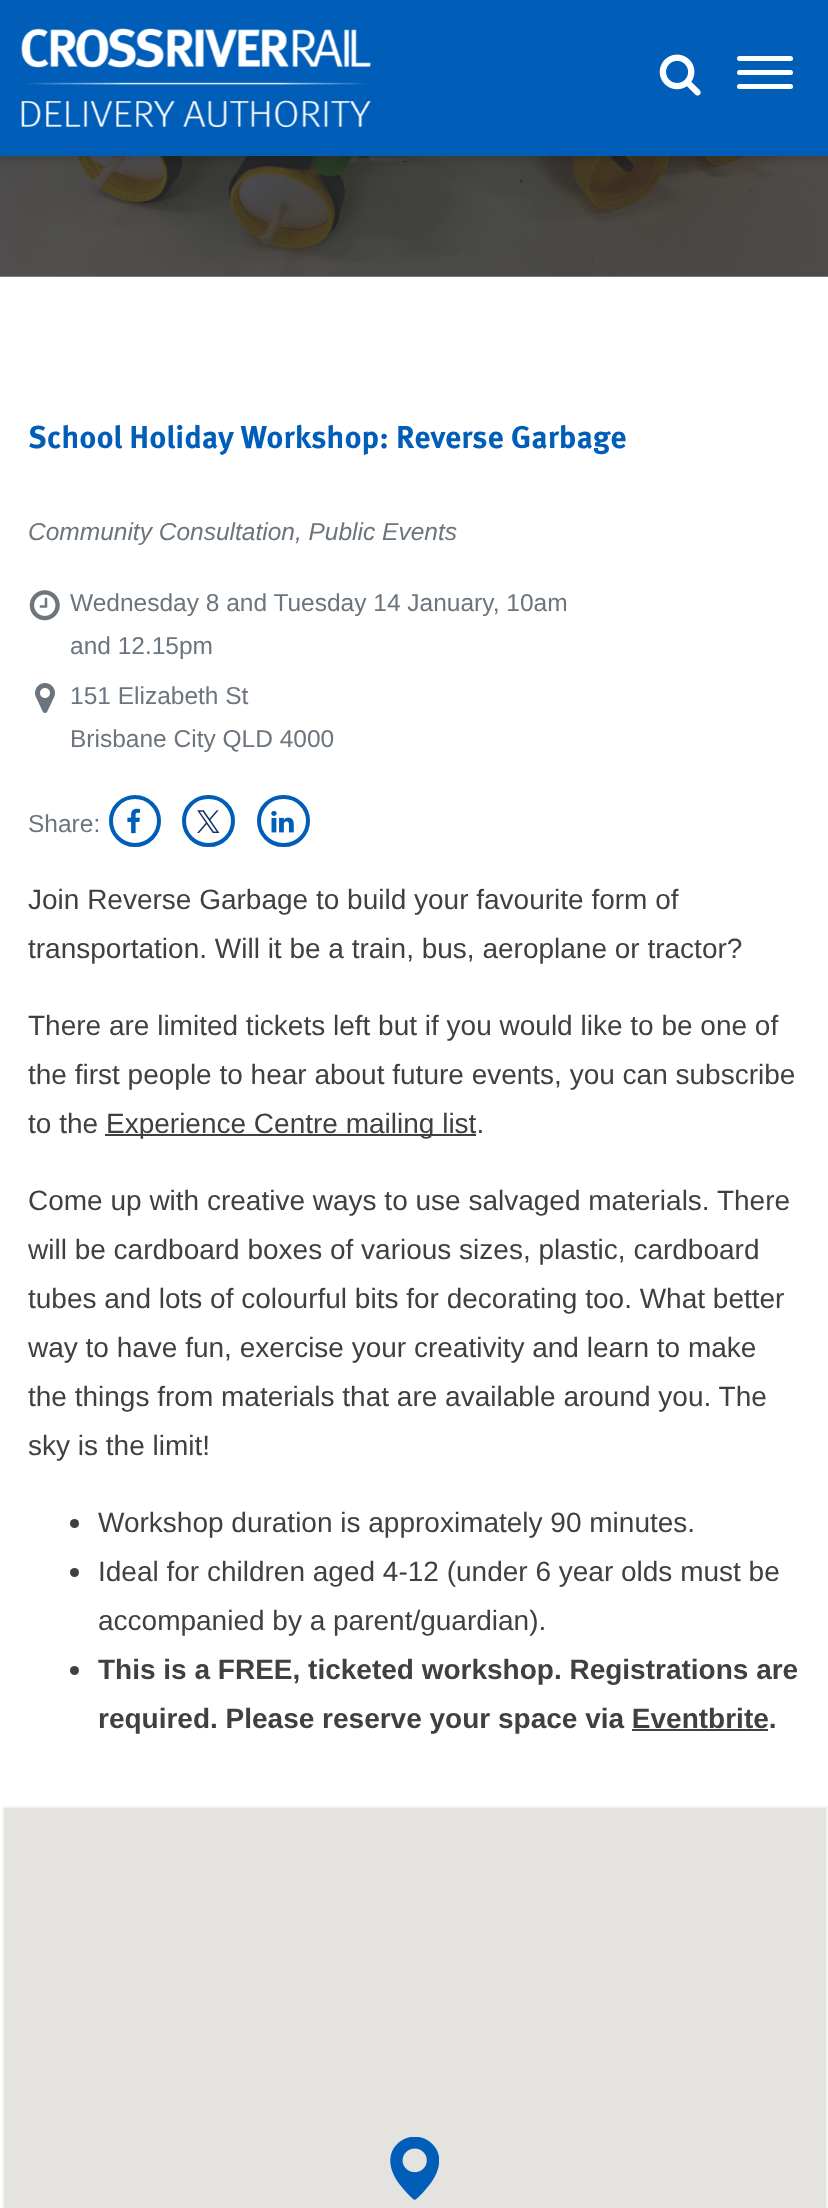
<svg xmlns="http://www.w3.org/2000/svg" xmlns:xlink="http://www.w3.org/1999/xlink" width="828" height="2208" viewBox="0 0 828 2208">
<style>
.cls-1{font:bold 31.5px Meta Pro;fill:#005eb8}
.cls-2{font:italic 24.5px Liberation Sans;fill:#6c757d}
.cls-3{font:24.5px Liberation Sans;fill:#6c757d}
.cls-4{font:28px Liberation Sans;fill:#404040}
.cls-5{font:bold 28px Liberation Sans;fill:#404040}
</style>
<rect width="100%" height="100%" fill="#ffffff"/>
<image xlink:href="image2.png" x="0" y="156" width="828" height="121"/>
<rect fill="#000000" fill-opacity="0.07" filter="blur(3.5px)" x="0" y="4" width="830" height="155"/>
<rect fill="#000000" fill-opacity="0.07" filter="blur(3.5px)" x="0" y="4" width="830" height="155"/>
<rect fill="#005eb8" x="0" y="0" width="828" height="156"/>
<image xlink:href="image0.png" x="21" y="28" width="350" height="100"/>
<image xlink:href="image1.png" x="659" y="54" width="42" height="42"/>
<rect fill="#ffffff" x="737" y="56" width="56" height="5" rx="2.5"/>
<rect fill="#ffffff" x="737" y="70" width="56" height="5" rx="2.5"/>
<rect fill="#ffffff" x="737" y="84" width="56" height="5" rx="2.5"/>
<image xlink:href="image3.png" x="29" y="590" width="31" height="31"/>
<image xlink:href="image4.png" x="35" y="683" width="20" height="30"/>
<circle fill="none" stroke="#005eb8" stroke-width="4" cx="135" cy="821" r="24"/>
<image xlink:href="image5.png" x="127" y="808" width="14" height="26"/>
<rect fill="none" stroke="#005eb8" stroke-width="4" x="184" y="797" width="49" height="48" rx="24"/>
<image xlink:href="image6.png" x="197" y="810" width="23" height="23"/>
<rect fill="none" stroke="#005eb8" stroke-width="4" x="259" y="797" width="49" height="48" rx="24"/>
<image xlink:href="image7.png" x="271" y="810" width="23" height="23"/>
<rect fill="#404040" x="105" y="1134" width="371" height="2"/>
<circle fill="#404040" cx="74.5" cy="1523.5" r="4.5"/>
<circle fill="#404040" cx="74.5" cy="1572.5" r="4.5"/>
<circle fill="#404040" cx="74.5" cy="1670.5" r="4.5"/>
<rect fill="#404040" x="632" y="1729" width="136" height="2"/>
<rect fill="none" stroke="#f5f5f5" stroke-width="2" x="3" y="1807" width="824" height="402"/>
<rect fill="#e5e3df" x="4" y="1808" width="822" height="400"/>
<image xlink:href="image8.png" x="390" y="2137" width="49" height="63"/>
<text class="cls-1" x="28" y="448">School Holiday Workshop: Reverse Garbage</text>
<text class="cls-2" x="28" y="540">Community Consultation, Public Events</text>
<text class="cls-3"><tspan x="70" y="611">Wednesday 8 and Tuesday 14 January, 10am</tspan><tspan x="70" y="654">and 12.15pm</tspan></text>
<text class="cls-3"><tspan x="70" y="704">151 Elizabeth St</tspan><tspan x="70" y="747">Brisbane City QLD 4000</tspan></text>
<text class="cls-3" x="28" y="832">Share:</text>
<text class="cls-4"><tspan x="28" y="909">Join Reverse Garbage to build your favourite form of</tspan><tspan x="28" y="958">transportation. Will it be a train, bus, aeroplane or tractor?</tspan></text>
<text class="cls-4"><tspan x="28" y="1035">There are limited tickets left but if you would like to be one of</tspan><tspan x="28" y="1084">the first people to hear about future events, you can subscribe</tspan><tspan x="28" y="1133">to the</tspan></text>
<text class="cls-4" x="106" y="1133">Experience Centre mailing list.</text>
<text class="cls-4"><tspan x="28" y="1210">Come up with creative ways to use salvaged materials. There</tspan><tspan x="28" y="1259">will be cardboard boxes of various sizes, plastic, cardboard</tspan><tspan x="28" y="1308">tubes and lots of colourful bits for decorating too. What better</tspan><tspan x="28" y="1357">way to have fun, exercise your creativity and learn to make</tspan><tspan x="28" y="1406">the things from materials that are available around you. The</tspan><tspan x="28" y="1455">sky is the limit!</tspan></text>
<text class="cls-4"><tspan x="98" y="1532">Workshop duration is approximately 90 minutes.</tspan><tspan x="98" y="1581">Ideal for children aged 4-12 (under 6 year olds must be</tspan><tspan x="98" y="1630">accompanied by a parent/guardian).</tspan></text>
<text class="cls-5"><tspan x="98" y="1679">This is a FREE, ticketed workshop. Registrations are</tspan><tspan x="98" y="1728">required. Please reserve your space via Eventbrite.</tspan></text>
</svg>
